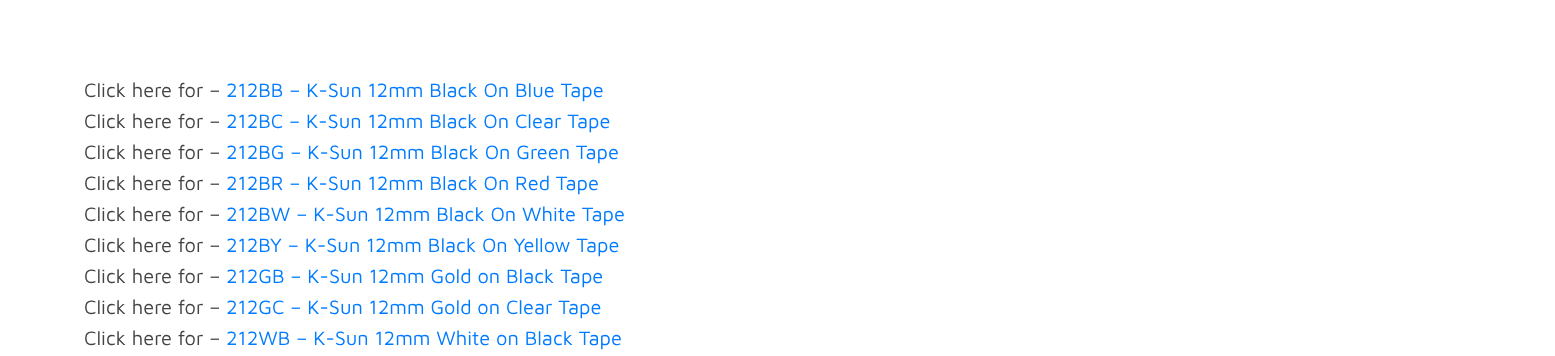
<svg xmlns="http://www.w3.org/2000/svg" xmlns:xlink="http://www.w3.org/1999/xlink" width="1555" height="356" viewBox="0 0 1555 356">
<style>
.cls-1{font:20px Maven Pro;fill:#444444}
.cls-2{font:20px Maven Pro;fill:#007bff}
</style>
<rect width="100%" height="100%" fill="#ffffff"/>
<text class="cls-1" x="84" y="97">Click here for –</text>
<text class="cls-2" x="226" y="97">212BB – K-Sun 12mm Black On Blue Tape</text>
<text class="cls-1" x="84" y="128">Click here for –</text>
<text class="cls-2" x="226" y="128">212BC – K-Sun 12mm Black On Clear Tape</text>
<text class="cls-1" x="84" y="159">Click here for –</text>
<text class="cls-2" x="226" y="159">212BG – K-Sun 12mm Black On Green Tape</text>
<text class="cls-1" x="84" y="190">Click here for –</text>
<text class="cls-2" x="226" y="190">212BR – K-Sun 12mm Black On Red Tape</text>
<text class="cls-1" x="84" y="221">Click here for –</text>
<text class="cls-2" x="226" y="221">212BW – K-Sun 12mm Black On White Tape</text>
<text class="cls-1" x="84" y="252">Click here for –</text>
<text class="cls-2" x="226" y="252">212BY – K-Sun 12mm Black On Yellow Tape</text>
<text class="cls-1" x="84" y="283">Click here for –</text>
<text class="cls-2" x="226" y="283">212GB – K-Sun 12mm Gold on Black Tape</text>
<text class="cls-1" x="84" y="314">Click here for –</text>
<text class="cls-2" x="226" y="314">212GC – K-Sun 12mm Gold on Clear Tape</text>
<text class="cls-1" x="84" y="345">Click here for –</text>
<text class="cls-2" x="226" y="345">212WB – K-Sun 12mm White on Black Tape</text>
</svg>
